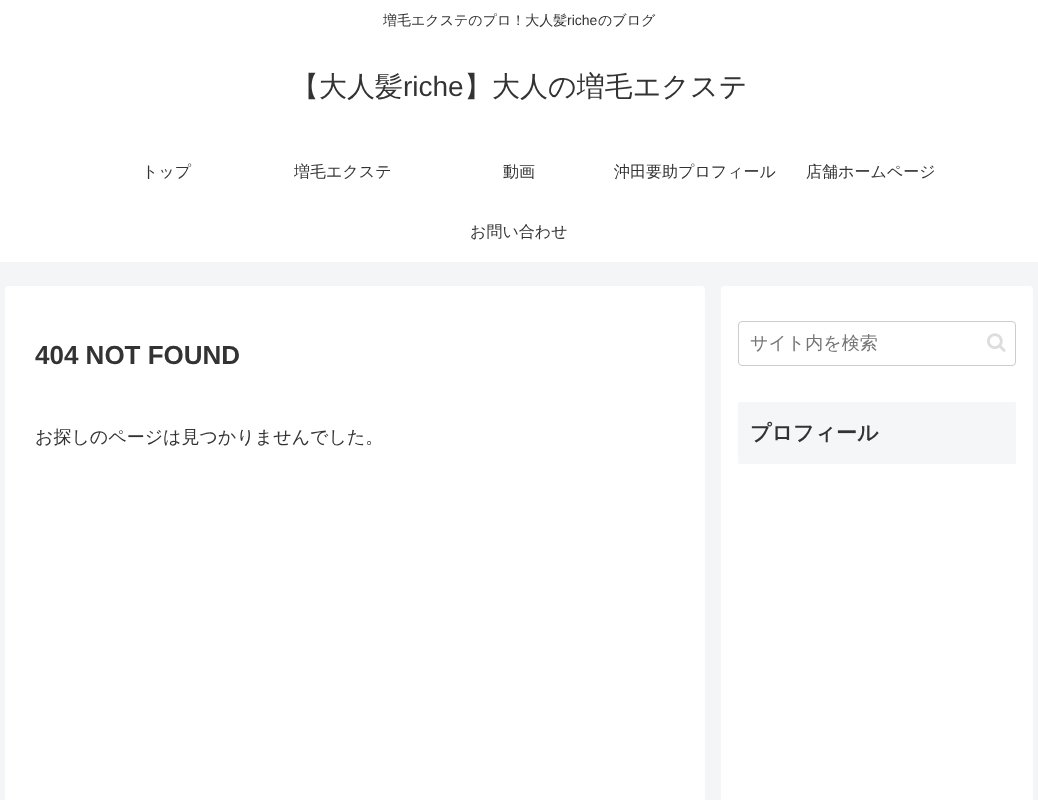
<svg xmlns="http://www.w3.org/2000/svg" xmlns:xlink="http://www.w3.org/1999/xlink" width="1038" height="800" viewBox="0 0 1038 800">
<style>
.cls-1{font:500 14px WenQuanYi Zen Hei;fill:#333333}
.cls-2{font:14px Liberation Sans;fill:#333333}
.cls-3{font:500 28px WenQuanYi Zen Hei;fill:#333333}
.cls-4{font:28px Liberation Sans;fill:#333333}
.cls-5{font:500 16px WenQuanYi Zen Hei;fill:#333333}
.cls-6{font:bold 26px Liberation Sans;fill:#333333}
.cls-7{font:500 18px WenQuanYi Zen Hei;fill:#333333}
.cls-8{font:500 18px WenQuanYi Zen Hei;fill:#757575}
.cls-9{font:bold 21px WenQuanYi Zen Hei;fill:#333333}
</style>
<rect width="100%" height="100%" fill="#f4f5f7"/>
<rect fill="#ffffff" x="0" y="0" width="1038" height="262"/>
<rect fill="#ffffff" x="5" y="286" width="700" height="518" rx="4"/>
<rect fill="#ffffff" x="721" y="286" width="312" height="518" rx="4"/>
<rect fill="none" stroke="#cccccc" x="738.5" y="321.5" width="277" height="44" rx="3.5"/>
<image xlink:href="image0.png" x="987" y="333" width="19" height="19"/>
<rect fill="#f5f6f7" x="738" y="402" width="278" height="62" rx="2"/>
<text class="cls-1" x="383" y="25">増毛エクステのプロ！大人髪</text>
<text class="cls-2" x="567" y="25">riche</text>
<text class="cls-1" x="598" y="25">のブログ</text>
<text class="cls-3" x="291" y="96">【大人髪</text>
<text class="cls-4" x="403" y="96">riche</text>
<text class="cls-3" x="464" y="96">】大人の増毛エクステ</text>
<text class="cls-5" x="142" y="177">トップ</text>
<text class="cls-5" x="294" y="177">増毛エクステ</text>
<text class="cls-5" x="503" y="177">動画</text>
<text class="cls-5" x="614" y="177">沖田要助プロフィール</text>
<text class="cls-5" x="806" y="177">店舗ホームページ</text>
<text class="cls-5" x="470" y="237">お問い合わせ</text>
<text class="cls-6" x="35" y="364">404 NOT FOUND</text>
<text class="cls-7" x="35" y="443">お探しのページは見つかりませんでした。</text>
<text class="cls-8" x="750" y="349">サイト内を検索</text>
<text class="cls-9" x="750" y="440">プロフィール</text>
</svg>
